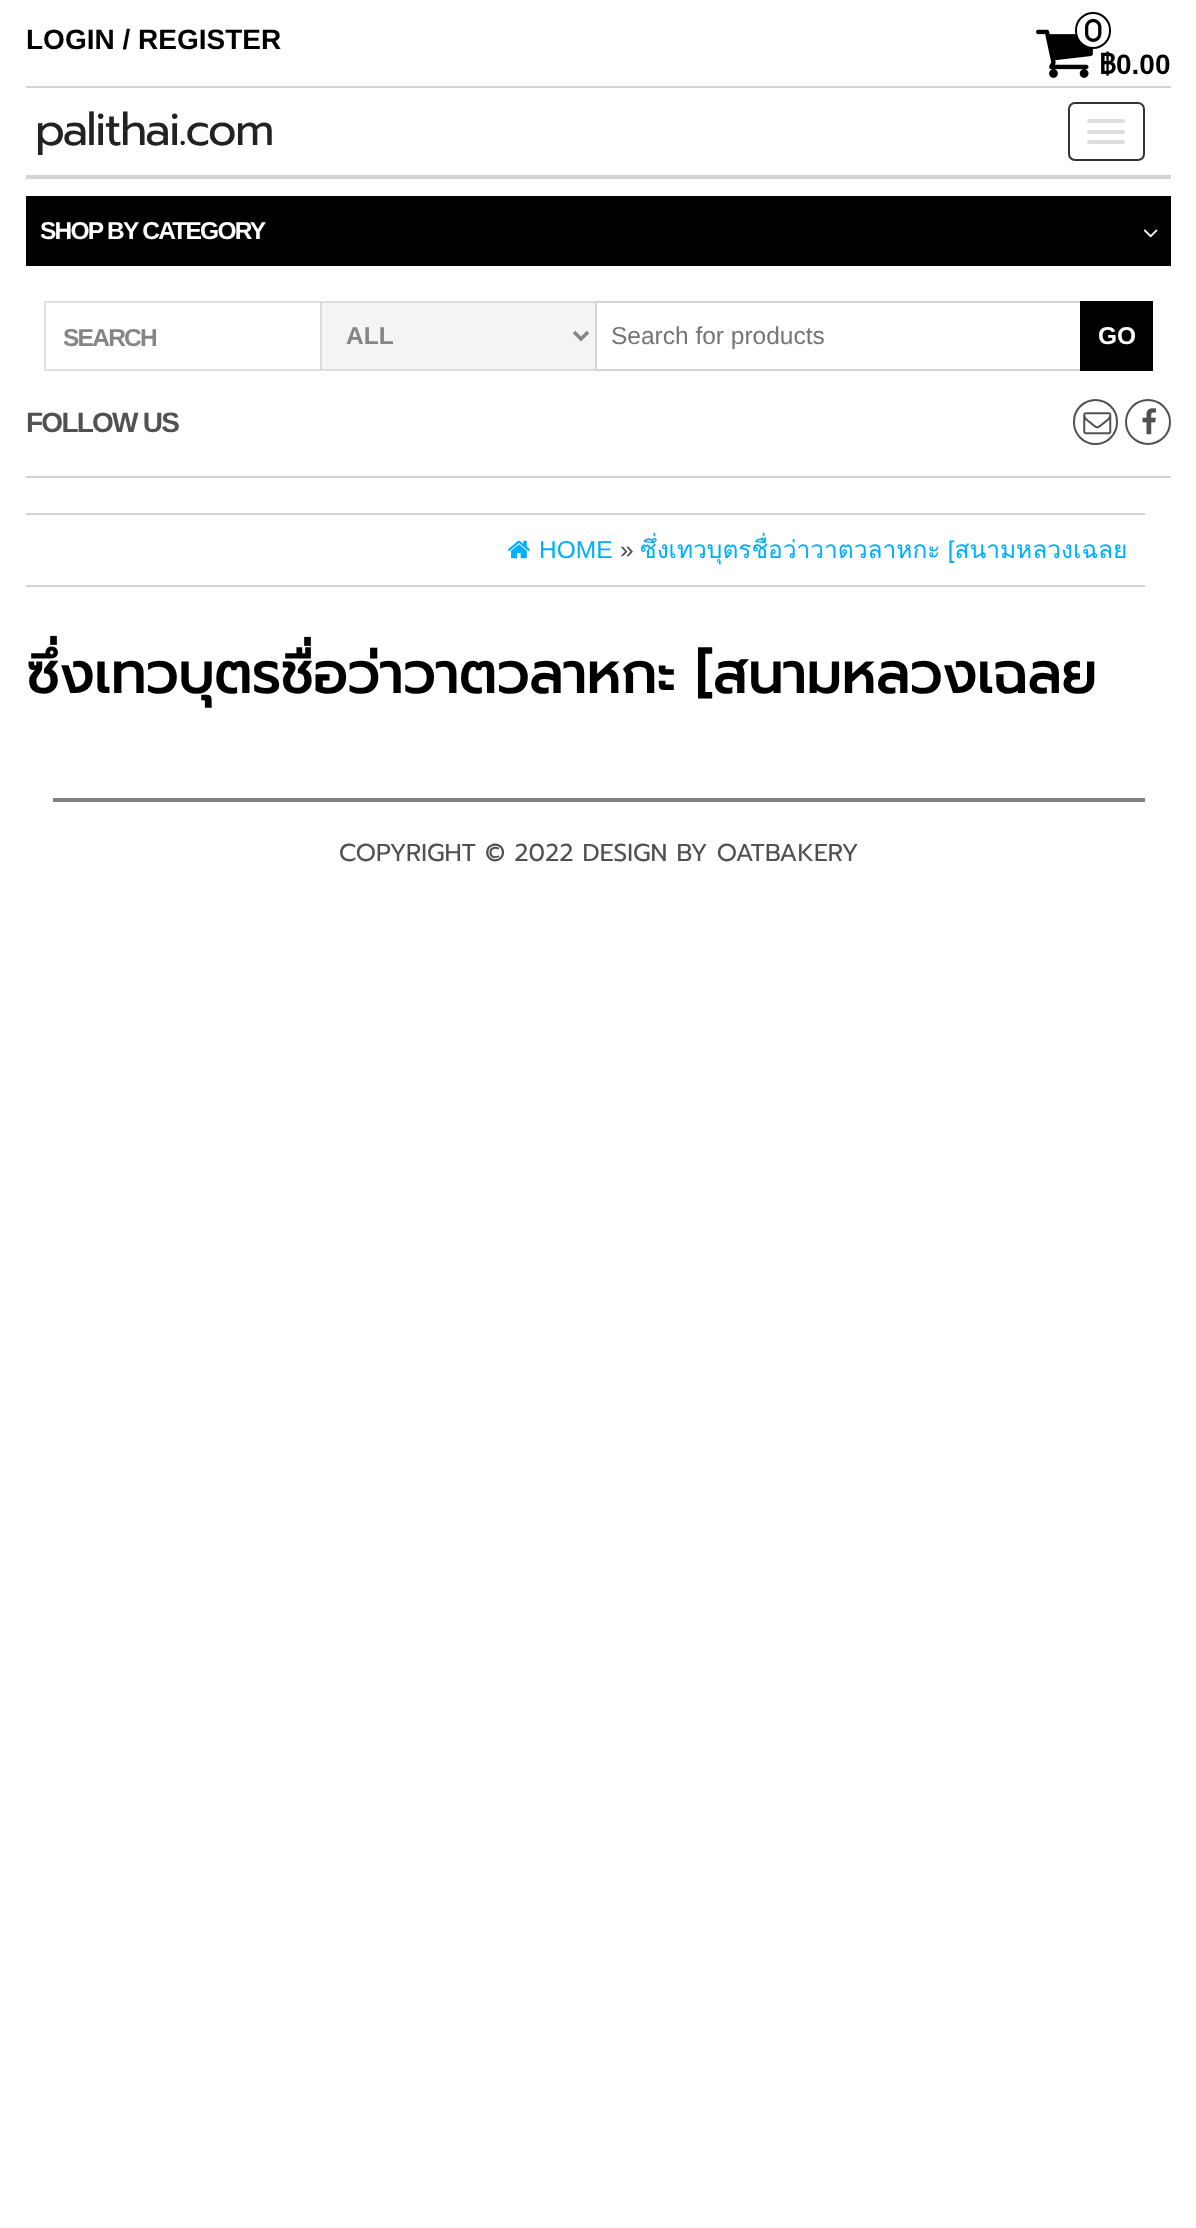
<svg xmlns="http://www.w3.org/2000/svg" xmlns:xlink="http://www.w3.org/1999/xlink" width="1196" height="2228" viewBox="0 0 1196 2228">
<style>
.cls-1{font:bold 28px Liberation Sans;fill:#000000}
.cls-2{font:bold 28px Loma;fill:#000000}
.cls-3{font:45.5px Prompt;letter-spacing:-1.75px;fill:#222222}
.cls-4{font:bold 24.5px Liberation Sans;letter-spacing:-1.75px;fill:#ffffff}
.cls-5{font:bold 24.5px Liberation Sans;letter-spacing:-1.75px;fill:#858585}
.cls-6{font:bold 24.5px Liberation Sans;fill:#858585}
.cls-7{font:24.5px Liberation Sans;fill:#757575}
.cls-8{font:bold 24.5px Liberation Sans;fill:#ffffff}
.cls-9{font:bold 28px Liberation Sans;letter-spacing:-1.75px;fill:#515151}
.cls-10{font:24.5px Liberation Sans;fill:#00aeff}
.cls-11{font:24.5px Liberation Sans;fill:#515151}
.cls-12{font:24.5px Loma;fill:#00aeff}
.cls-13{font:bold 56px Prompt;fill:#000000}
.cls-14{font:24.5px Prompt;fill:#515151}
</style>
<rect width="100%" height="100%" fill="#ffffff"/>
<image xlink:href="image1.png" x="1036" y="29" width="57" height="49"/>
<rect fill="#ffffff" stroke="#000000" stroke-width="2" x="1076" y="13" width="34" height="35" rx="17"/>
<image xlink:href="image0.png" x="1085" y="18" width="17" height="24"/>
<rect fill="#d3d3d3" x="26" y="175" width="1145" height="4"/>
<rect fill="#d3d3d3" x="26" y="86" width="1145" height="2"/>
<rect fill="none" stroke="#333333" stroke-width="2" x="1069" y="103" width="75" height="57" rx="6"/>
<rect fill="#dddddd" x="1087" y="119" width="38" height="4" rx="2"/>
<rect fill="#dddddd" x="1087" y="130" width="38" height="4" rx="2"/>
<rect fill="#dddddd" x="1087" y="140" width="38" height="4" rx="2"/>
<rect fill="#d3d3d3" x="26" y="476" width="1145" height="2"/>
<rect fill="#000000" x="26" y="196" width="1145" height="70"/>
<image xlink:href="image2.png" x="1143" y="229" width="15" height="9"/>
<rect fill="none" stroke="#e0e0e0" stroke-width="2" x="45" y="302" width="276" height="68"/>
<rect fill="#efefef" fill-opacity="0.7" x="320" y="301" width="275" height="70"/>
<rect fill="none" stroke="#d3d3d3" stroke-opacity="0.7" stroke-width="2" x="321" y="302" width="275" height="68"/>
<path fill="none" stroke="#858585" stroke-width="3.5" d="M574 332L581 339L588 332"/>
<rect fill="none" stroke="#d3d3d3" stroke-width="2" x="596" y="302" width="553" height="68"/>
<rect fill="#000000" x="1080" y="301" width="73" height="70"/>
<rect fill="none" stroke="#515151" stroke-width="2" x="1074" y="400" width="43" height="44" rx="21.5"/>
<image xlink:href="image3.png" x="1083" y="412" width="29" height="23"/>
<circle fill="none" stroke="#515151" stroke-width="2" cx="1148" cy="422" r="22"/>
<image xlink:href="image4.png" x="1142" y="408" width="14" height="27"/>
<rect fill="#d3d3d3" x="26" y="513" width="1119" height="2"/>
<rect fill="#d3d3d3" x="26" y="585" width="1119" height="2"/>
<image xlink:href="image5.png" x="507" y="540" width="23" height="19"/>
<rect fill="#808080" x="53" y="798" width="1092" height="4"/>
<text class="cls-1" x="26" y="49">LOGIN / REGISTER</text>
<text class="cls-2" x="1099" y="74">฿</text>
<text class="cls-1" x="1116" y="74">0.00</text>
<text class="cls-3" x="35" y="145">palithai.com</text>
<text class="cls-4" x="40" y="239">SHOP BY CATEGORY</text>
<text class="cls-5" x="63" y="346">SEARCH</text>
<text class="cls-6" x="346" y="344">ALL</text>
<text class="cls-7" x="611" y="344">Search for products</text>
<text class="cls-8" x="1098" y="344">GO</text>
<text class="cls-9" x="26" y="432">FOLLOW US</text>
<text class="cls-10" x="539" y="558">HOME</text>
<text class="cls-11" x="620" y="558">»</text>
<text class="cls-12" x="640" y="558" word-spacing="-1">ซึ่งเทวบุตรชื่อว่าวาตวลาหกะ [สนามหลวงเฉลย</text>
<text class="cls-13" x="26" y="693">ซึ่งเทวบุตรชื่อว่าวาตวลาหกะ [สนามหลวงเฉลย</text>
<text class="cls-14" x="339" y="861">COPYRIGHT © 2022 DESIGN BY OATBAKERY</text>
</svg>
